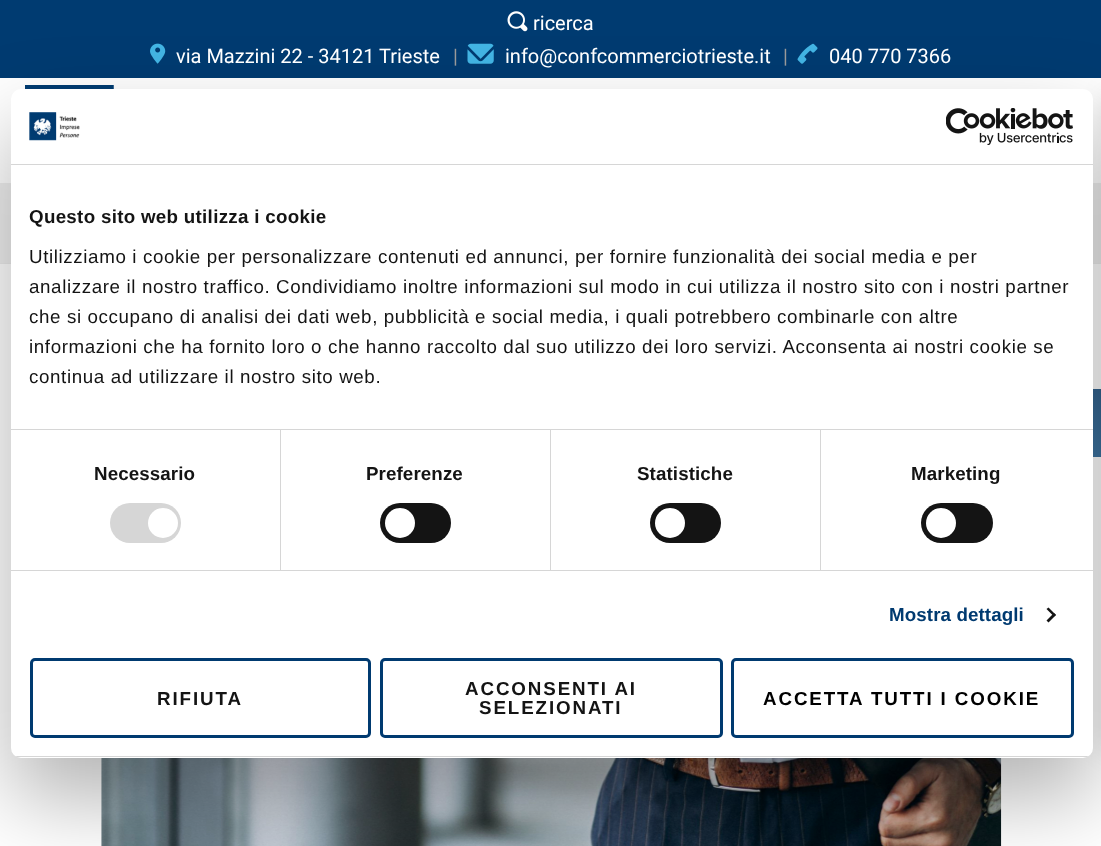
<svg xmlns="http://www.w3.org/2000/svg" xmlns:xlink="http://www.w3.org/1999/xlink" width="1101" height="846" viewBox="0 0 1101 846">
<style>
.cls-1{font:20px Roboto;fill:#ffffff}
.cls-2{font:20px Roboto;fill:#999999}
.cls-3{font:bold 18.75px Liberation Sans;letter-spacing:0.3px;fill:#141414}
.cls-4{font:18.75px Liberation Sans;letter-spacing:0.62px;fill:#141414}
.cls-5{font:bold 18.75px Liberation Sans;letter-spacing:0.1px;fill:#141414}
.cls-6{font:bold 18.75px Liberation Sans;letter-spacing:0.1px;fill:#003a70}
.cls-7{font:bold 18.75px Liberation Sans;letter-spacing:1.9px;fill:#141414}
.cls-8{font:bold 18.75px Liberation Sans;letter-spacing:1.9px;fill:#000000}
</style>
<defs>
<linearGradient id="g1" gradientUnits="userSpaceOnUse" x1="1034" y1="457" x2="1101" y2="389"><stop offset="0" stop-color="#4783b1"/><stop offset="1" stop-color="#33638e"/></linearGradient>
<clipPath id="clip1"><rect x="11" y="89" width="1082" height="669" rx="10"/></clipPath>
</defs>
<rect width="100%" height="100%" fill="#ffffff"/>
<rect fill="url(#g1)" x="1093" y="389" width="8" height="68"/>
<rect fill="#efefef" x="0" y="183" width="1101" height="80"/>
<rect fill="#ececec" x="0" y="263" width="1101" height="1"/>
<rect fill="#000000" fill-opacity="0.1" filter="blur(12.5px)" x="1101" y="96" width="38" height="655"/>
<rect fill="#003b71" x="0" y="0" width="1101" height="78"/>
<image xlink:href="image0.png" x="507" y="11" width="21" height="21"/>
<image xlink:href="image1.png" x="150" y="43" width="16" height="21"/>
<image xlink:href="image2.png" x="467" y="43" width="27" height="21"/>
<image xlink:href="image3.png" x="797" y="43" width="21" height="21"/>
<image xlink:href="image4.png" x="101" y="758" width="901" height="88"/>
<image xlink:href="image5.png" x="25" y="85" width="167" height="4"/>
<rect fill="#000000" fill-opacity="0.3" filter="blur(42.5px)" x="11" y="129" width="1082" height="669" rx="10"/>
<rect fill="#ffffff" x="11" y="89" width="1082" height="669" rx="10"/>
<rect fill="#d6d6d6" x="11" y="164" width="1082" height="1"/>
<image xlink:href="image6.png" x="29" y="112" width="51" height="29"/>
<image xlink:href="image7.png" x="946" y="108" width="127" height="37"/>
<rect fill="#d6d6d6" x="11" y="429" width="1082" height="1"/>
<rect fill="#d6d6d6" x="11" y="570" width="1082" height="1"/>
<rect fill="#d6d6d6" x="280" y="430" width="1" height="140"/>
<rect fill="#d6d6d6" x="110" y="503" width="71" height="40" rx="20"/>
<circle fill="#ffffff" cx="163" cy="523" r="15"/>
<rect fill="#d6d6d6" x="550" y="430" width="1" height="140"/>
<rect fill="#141414" x="380" y="503" width="71" height="40" rx="20"/>
<circle fill="#ffffff" cx="400" cy="523" r="15"/>
<rect fill="#d6d6d6" x="820" y="430" width="1" height="140"/>
<rect fill="#141414" x="650" y="503" width="71" height="40" rx="20"/>
<circle fill="#ffffff" cx="670" cy="523" r="15"/>
<rect fill="#141414" x="921" y="503" width="72" height="40" rx="20"/>
<circle fill="#ffffff" cx="941" cy="523" r="15"/>
<path fill="#141414" d="M1048.5 607.5L1056 615L1054 616.5L1046.5 609Z"/>
<path fill="#141414" d="M1054 613L1056 615L1048.5 622.5L1046.5 620.5Z"/>
<g clip-path="url(#clip1)">
<rect fill="#d6d6d6" x="11" y="756" width="1082" height="1"/>
</g>
<rect fill="none" stroke="#003a70" stroke-width="3" x="31.5" y="659.5" width="338" height="77" rx="3.5"/>
<rect fill="none" stroke="#003a70" stroke-width="3" x="381.5" y="659.5" width="340" height="77" rx="3.5"/>
<rect fill="none" stroke="#003a70" stroke-width="3" x="732.5" y="659.5" width="340" height="77" rx="3.5"/>
<text class="cls-1" x="533" y="30">ricerca</text>
<text class="cls-1" x="176" y="63">via Mazzini 22 - 34121 Trieste</text>
<text class="cls-2" x="453" y="63">|</text>
<text class="cls-1" x="505" y="63">info@confcommerciotrieste.it</text>
<text class="cls-2" x="783" y="63">|</text>
<text class="cls-1" x="829" y="63">040 770 7366</text>
<text class="cls-3" x="29" y="223">Questo sito web utilizza i cookie</text>
<text class="cls-4"><tspan x="29" y="263">Utilizziamo i cookie per personalizzare contenuti ed annunci, per fornire funzionalità dei social media e per</tspan><tspan x="29" y="293">analizzare il nostro traffico. Condividiamo inoltre informazioni sul modo in cui utilizza il nostro sito con i nostri partner</tspan><tspan x="29" y="323">che si occupano di analisi dei dati web, pubblicità e social media, i quali potrebbero combinarle con altre</tspan><tspan x="29" y="353">informazioni che ha fornito loro o che hanno raccolto dal suo utilizzo dei loro servizi. Acconsenta ai nostri cookie se</tspan><tspan x="29" y="383">continua ad utilizzare il nostro sito web.</tspan></text>
<text class="cls-5" x="94" y="480">Necessario</text>
<text class="cls-5" x="366" y="480">Preferenze</text>
<text class="cls-5" x="637" y="480">Statistiche</text>
<text class="cls-5" x="911" y="480">Marketing</text>
<text class="cls-6" x="889" y="621">Mostra dettagli</text>
<text class="cls-7" x="157" y="705">RIFIUTA</text>
<text class="cls-7" x="465" y="695">ACCONSENTI AI</text>
<text class="cls-7" x="479" y="714">SELEZIONATI</text>
<text class="cls-8" x="763" y="705">ACCETTA TUTTI I COOKIE</text>
</svg>
